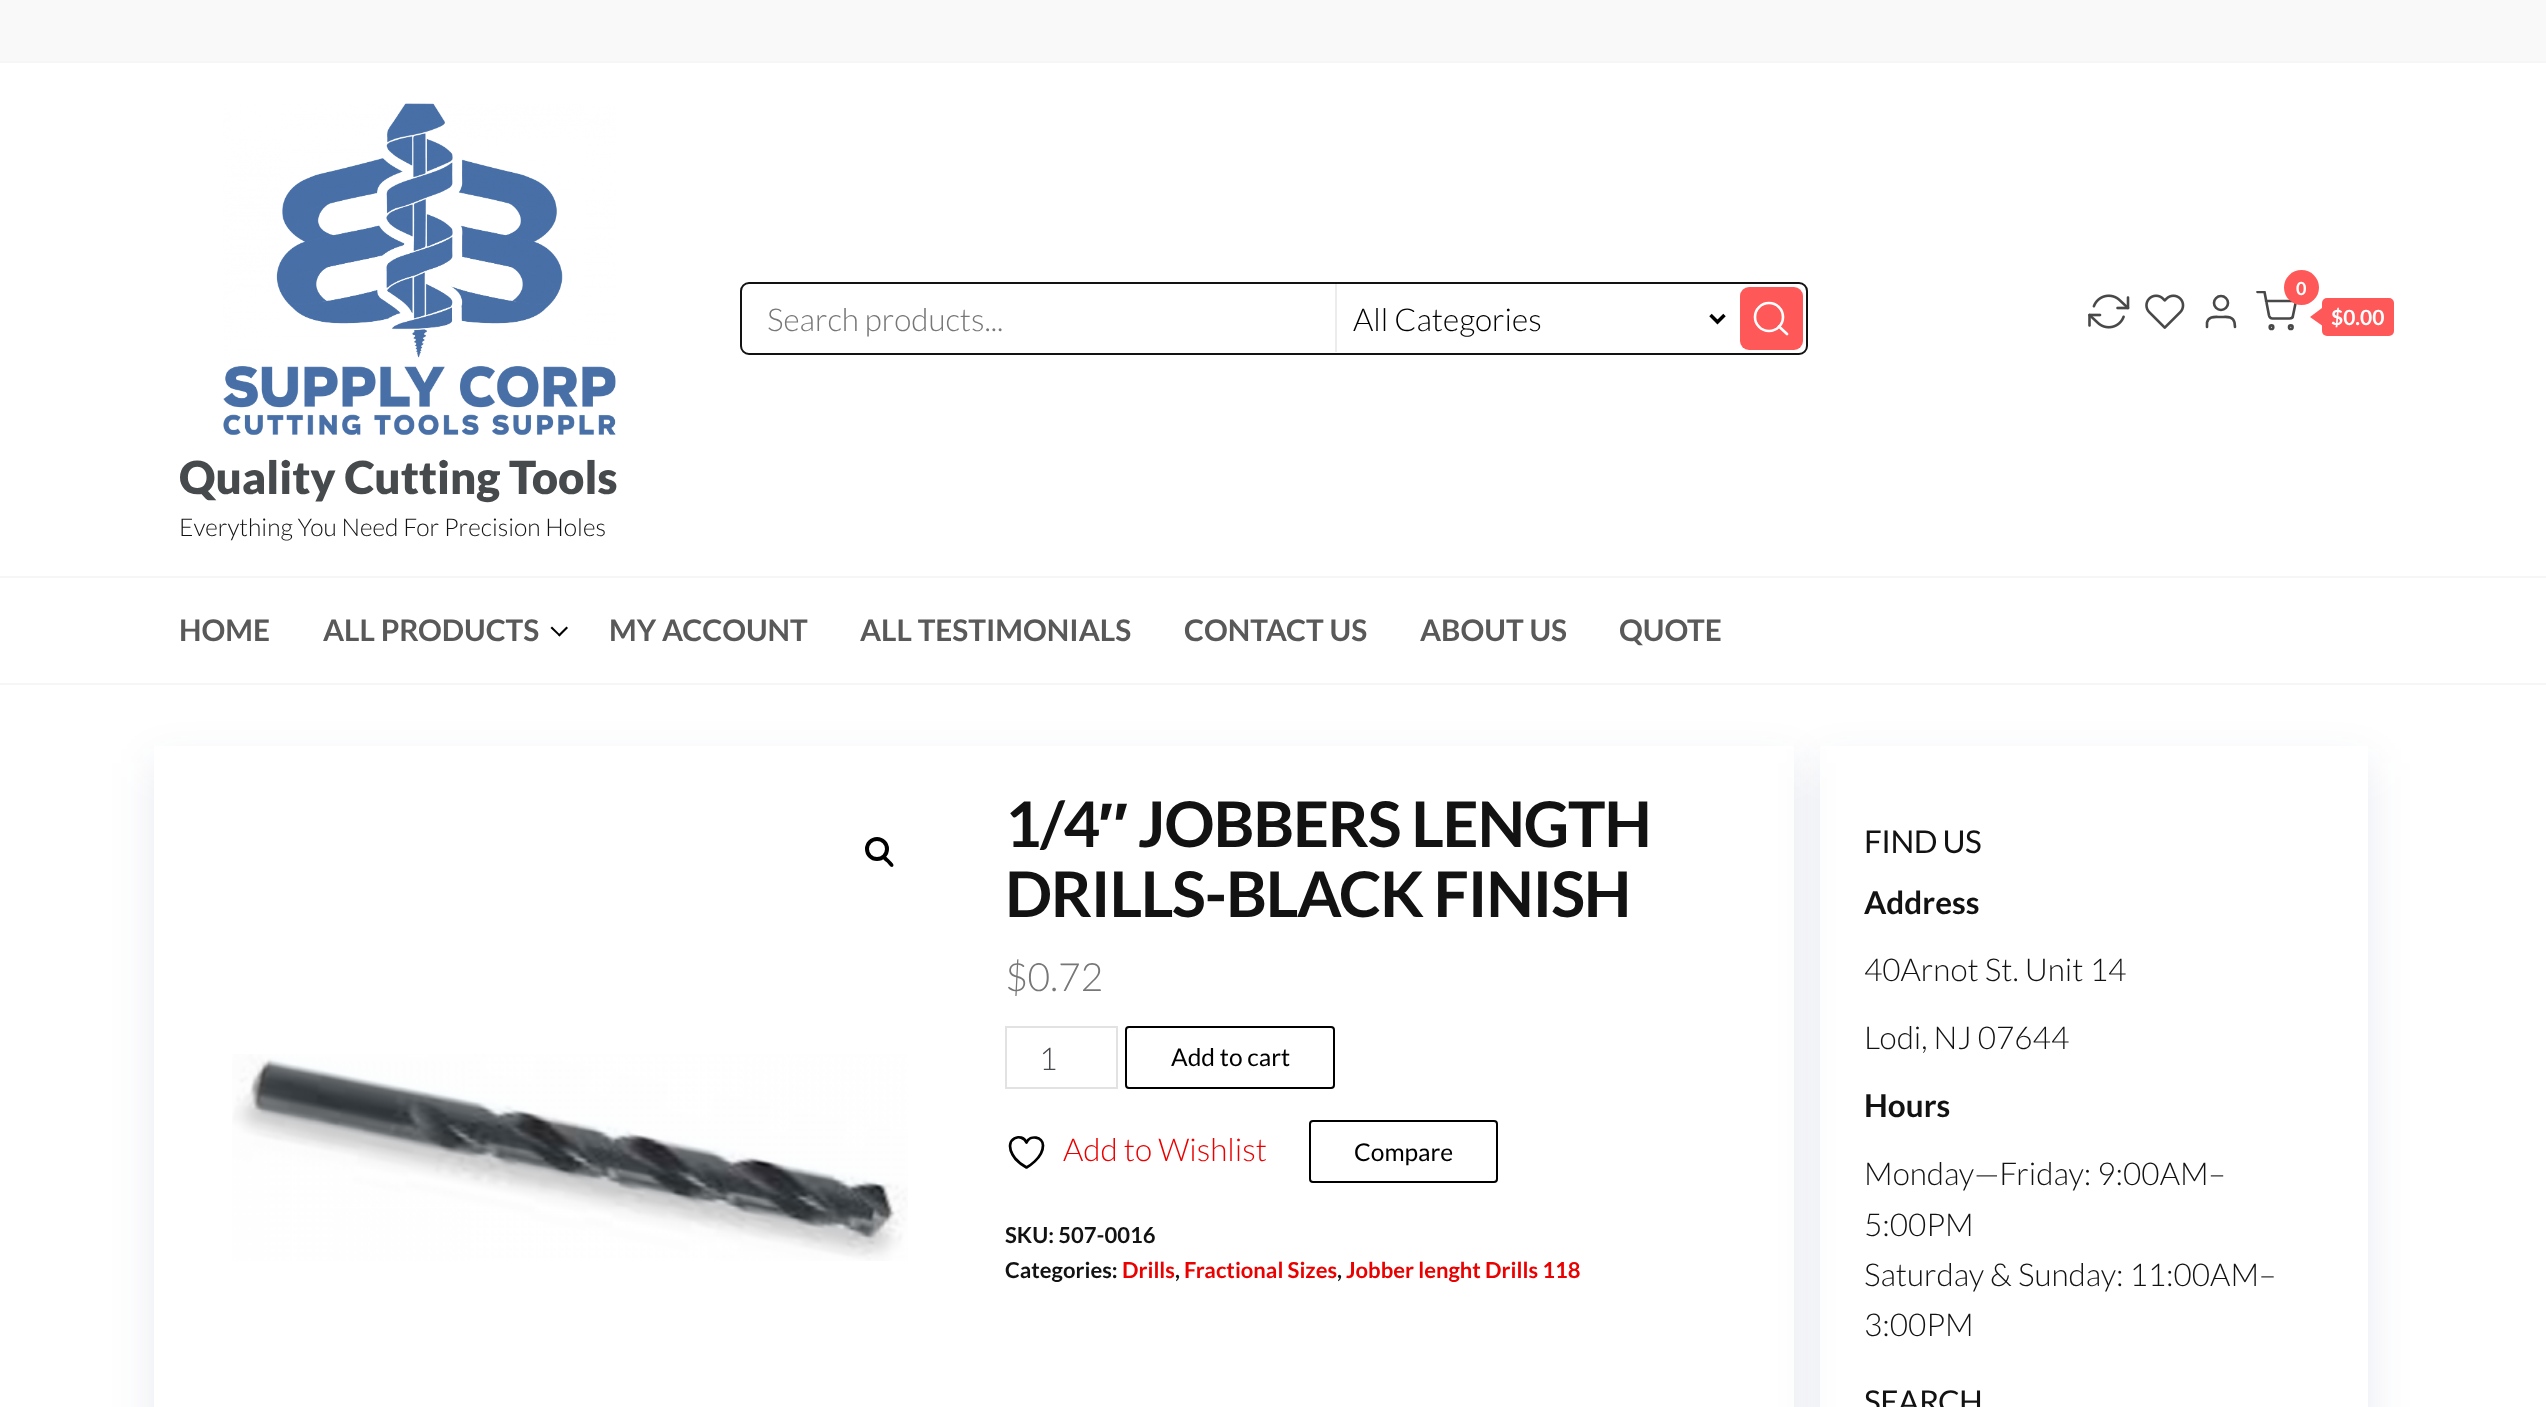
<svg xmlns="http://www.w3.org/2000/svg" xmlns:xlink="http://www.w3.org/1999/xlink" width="2546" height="1407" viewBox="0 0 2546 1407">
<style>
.cls-1{font:300 31.5px Lato;fill:#777777}
.cls-2{font:300 31.5px Lato;fill:#000000}
.cls-3{font:bold 18px Lato;fill:#ffffff}
.cls-4{font:bold 21px Lato;fill:#ffffff}
.cls-5{font:900 45.5px Lato;fill:#464a4c}
.cls-6{font:300 24.5px Lato;fill:#121212}
.cls-7{font:bold 29.75px Lato;fill:#595959}
.cls-8{font:bold 63px Lato;letter-spacing:-1.25px;fill:#121212}
.cls-9{font:bold 63px Liberation Sans;letter-spacing:-1.25px;fill:#121212}
.cls-10{font:300 39px Lato;fill:#777777}
.cls-11{font:300 31.5px Lato;fill:#464a4c}
.cls-12{font:24.5px Lato;fill:#000000}
.cls-13{font:300 31.5px Lato;fill:#eb0000}
.cls-14{font:bold 22px Lato;fill:#121212}
.cls-15{font:bold 22px Lato;fill:#eb0000}
.cls-16{font:31.5px Lato;letter-spacing:-0.5px;fill:#121212}
.cls-17{font:bold 31.5px Lato;fill:#121212}
.cls-18{font:300 31.5px Lato;fill:#121212}
</style>
<defs>
<clipPath id="clip1"><rect x="2256" y="291" width="42" height="42"/></clipPath>
<clipPath id="clip2"><path d="M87 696H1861V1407H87ZM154 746H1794V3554H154Z" clip-rule="evenodd"/></clipPath>
<clipPath id="clip3"><path d="M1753 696H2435V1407H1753ZM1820 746H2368V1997H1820Z" clip-rule="evenodd"/></clipPath>
</defs>
<rect width="100%" height="100%" fill="#ffffff"/>
<rect fill="#f9f9f9" x="0" y="0" width="2546" height="61"/>
<rect fill="#f6f6f6" x="0" y="61" width="2546" height="2"/>
<rect fill="#f6f6f6" x="0" y="576" width="2546" height="2"/>
<rect fill="none" stroke="#121212" stroke-width="2" x="741" y="283" width="1066" height="71" rx="8"/>
<rect fill="#ececec" x="1335" y="284" width="2" height="68"/>
<path fill="none" stroke="#000000" stroke-width="3.5" d="M1710.5 315L1717.5 322L1724.5 315"/>
<rect fill="#ff5858" x="1740" y="287" width="63" height="63" rx="9"/>
<circle fill="none" stroke="#ffffff" stroke-width="2.6" cx="1769" cy="317" r="14"/>
<path fill="none" stroke="#ffffff" stroke-width="2.6" stroke-linecap="round" stroke-linejoin="round" d="M1787 334L1779 326.5"/>
<image xlink:href="image0.png" x="2088" y="294" width="42" height="35"/>
<image xlink:href="image1.png" x="2145" y="294" width="40" height="35"/>
<circle fill="none" stroke="#484848" stroke-width="2.6" cx="2221" cy="303" r="7"/>
<path fill="none" stroke="#484848" stroke-width="2.6" stroke-linecap="round" stroke-linejoin="round" d="M2235 327L2234.5 322.5C2233 315.5 2226 317 2221 317C2215.5 317 2208.5 315.5 2207 322.5V327"/>
<g clip-path="url(#clip1)">
<path fill="none" stroke="#484848" stroke-width="2.6" stroke-linecap="round" stroke-linejoin="round" d="M2257.5 292H2264.5L2269 315.5C2269.5 317.5 2271 318.5 2272.5 318.5H2289.5C2291.5 318.5 2293 317.5 2293 315.5L2296 301H2266"/>
</g>
<circle fill="#ff5858" cx="2301.5" cy="287.5" r="17.5"/>
<rect fill="#ff5858" x="2322" y="298" width="72" height="38" rx="5"/>
<path fill="#ff5858" d="M2322 308V325.5L2310 317Z"/>
<circle fill="none" stroke="#484848" stroke-width="2.6" cx="2271.5" cy="327.2" r="1.8"/>
<circle fill="none" stroke="#484848" stroke-width="2.6" cx="2290.8" cy="327.2" r="1.8"/>
<image xlink:href="image2.png" x="223" y="103" width="393" height="332"/>
<rect fill="#f6f6f6" x="0" y="683" width="2546" height="2"/>
<path fill="#000000" d="M568 628L559.5 636.5L558 635L566.5 626.5Z"/>
<path fill="#000000" d="M560.5 635L559.5 636.5L550.5 628L552 626.5Z"/>
<g clip-path="url(#clip2)">
<rect fill="#192d6e" fill-opacity="0.1" filter="blur(22px)" x="154" y="763" width="1640" height="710"/>
</g>
<circle fill="none" stroke="#000000" stroke-width="4" cx="877" cy="849" r="10"/>
<path fill="#000000" d="M883 856.5C885 854.5 888.5 859 889.5 860C890.5 861 895 864.5 893 866.5C891 868.5 888 863.5 887 862.5C886 861.5 881 858.5 883 856.5Z"/>
<image xlink:href="image3.png" x="232" y="1054" width="676" height="207"/>
<rect fill="none" stroke="#e2e2e2" stroke-width="2" x="1006" y="1027" width="111" height="61"/>
<rect fill="none" stroke="#000000" stroke-width="2" x="1126" y="1027" width="208" height="61" rx="3"/>
<path fill="none" stroke="#000000" stroke-width="2.7" stroke-linecap="round" stroke-linejoin="round" d="M1043 1145.5C1043 1136.5 1030 1134.5 1026.5 1142.5C1022 1132 1003.5 1138 1012.5 1154.5C1015.5 1160 1021 1164.5 1026.5 1167.5C1026.5 1167.5 1043 1158.5 1043 1145.5Z"/>
<rect fill="none" stroke="#000000" stroke-width="2" x="1310" y="1121" width="187" height="61" rx="3"/>
<g clip-path="url(#clip3)">
<rect fill="#1c2d71" fill-opacity="0.1" filter="blur(22px)" x="1820" y="763" width="548" height="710"/>
</g>
<text class="cls-1" x="767" y="331">Search products...</text>
<text class="cls-2" x="1353" y="331">All Categories</text>
<text class="cls-3" x="2296" y="295">0</text>
<text class="cls-4" x="2331" y="325">$0.00</text>
<text class="cls-5" x="179" y="494">Quality Cutting Tools</text>
<text class="cls-6" x="179" y="536">Everything You Need For Precision Holes</text>
<text class="cls-7" x="179" y="641">HOME</text>
<text class="cls-7" x="323" y="641">ALL PRODUCTS</text>
<text class="cls-7" x="609" y="641">MY ACCOUNT</text>
<text class="cls-7" x="860" y="641">ALL TESTIMONIALS</text>
<text class="cls-7" x="1184" y="641">CONTACT US</text>
<text class="cls-7" x="1420" y="641">ABOUT US</text>
<text class="cls-7" x="1619" y="641">QUOTE</text>
<text class="cls-8" x="1005" y="847">1/4</text>
<text class="cls-9" x="1098" y="847">″</text>
<text class="cls-8" x="1138" y="847">JOBBERS LENGTH</text>
<text class="cls-8" x="1005" y="917">DRILLS-BLACK FINISH</text>
<text class="cls-10" x="1005" y="991">$0.72</text>
<text class="cls-11" x="1039" y="1070">1</text>
<text class="cls-12" x="1171" y="1066">Add to cart</text>
<text class="cls-13" x="1063" y="1161">Add to Wishlist</text>
<text class="cls-12" x="1354" y="1161">Compare</text>
<text class="cls-14"><tspan x="1005" y="1243">SKU: 507-0016</tspan><tspan x="1005" y="1278">Categories:</tspan></text>
<text class="cls-15" x="1122" y="1278">Drills</text>
<text class="cls-14" x="1175" y="1278">,</text>
<text class="cls-15" x="1184" y="1278">Fractional Sizes</text>
<text class="cls-14" x="1337" y="1278">,</text>
<text class="cls-15" x="1346" y="1278">Jobber lenght Drills 118</text>
<text class="cls-16" x="1864" y="853">FIND US</text>
<text class="cls-17" x="1864" y="914">Address</text>
<text class="cls-18" x="1864" y="981">40Arnot St. Unit 14</text>
<text class="cls-18" x="1864" y="1049">Lodi, NJ 07644</text>
<text class="cls-17" x="1864" y="1117">Hours</text>
<text class="cls-18"><tspan x="1864" y="1185">Monday—Friday: 9:00AM–</tspan><tspan x="1864" y="1236">5:00PM</tspan><tspan x="1864" y="1286">Saturday &amp; Sunday: 11:00AM–</tspan><tspan x="1864" y="1336">3:00PM</tspan></text>
<text class="cls-16" x="1864" y="1413">SEARCH</text>
</svg>
